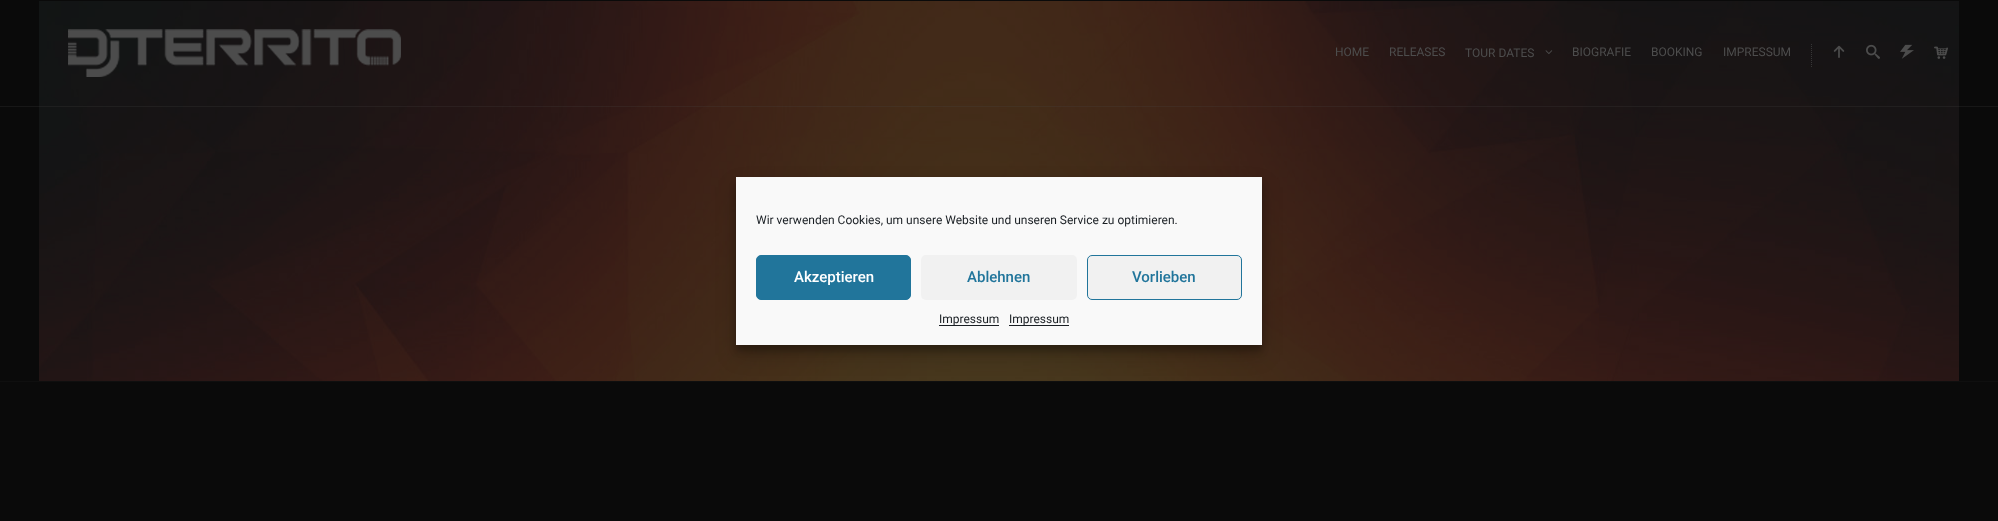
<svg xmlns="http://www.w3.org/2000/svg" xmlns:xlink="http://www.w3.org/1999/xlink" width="1998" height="521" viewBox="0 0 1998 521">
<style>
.cls-1{font:12px Roboto;fill:#4d4d4d}
.cls-2{font:12px Roboto;fill:#191e23}
.cls-3{font:500 15px Roboto;fill:#ffffff}
.cls-4{font:500 15px Roboto;fill:#21759b}
</style>
<rect width="100%" height="100%" fill="#0a0a0a"/>
<image xlink:href="image0.png" x="39" y="1" width="1920" height="380"/>
<rect fill="#0f0f0f" x="0" y="381" width="1998" height="1"/>
<rect fill="#4d4d4d" fill-opacity="0.2" x="0" y="106" width="1998" height="1"/>
<image xlink:href="image1.png" x="68" y="29" width="333" height="48"/>
<image xlink:href="image2.png" x="1545" y="50" width="8" height="5"/>
<path fill="none" stroke="#4d4d4d" stroke-opacity="0.6" stroke-dasharray="1 1" d="M1811.5 44V68"/>
<image xlink:href="image3.png" x="1833" y="45" width="12" height="13"/>
<image xlink:href="image4.png" x="1866" y="44" width="14" height="15"/>
<image xlink:href="image5.png" x="1900" y="44" width="14" height="15"/>
<image xlink:href="image6.png" x="1934" y="46" width="14" height="13"/>
<rect fill="#000000" fill-opacity="0.23" filter="blur(3px)" x="736" y="183" width="526" height="168"/>
<rect fill="#000000" fill-opacity="0.19" filter="blur(10px)" x="736" y="187" width="526" height="168"/>
<rect fill="#f9f9f9" x="736" y="177" width="526" height="168"/>
<rect fill="#21759b" stroke="#21759b" x="756.5" y="255.5" width="154" height="44" rx="4.5"/>
<rect fill="#f1f1f1" x="921" y="255" width="156" height="45" rx="5"/>
<rect fill="#f1f1f1" stroke="#21759b" x="1087.5" y="255.5" width="154" height="44" rx="4.5"/>
<rect fill="#191e23" x="939" y="325" width="60" height="1"/>
<rect fill="#191e23" x="1009" y="325" width="60" height="1"/>
<text class="cls-1" x="1335" y="56">HOME</text>
<text class="cls-1" x="1389" y="56">RELEASES</text>
<text class="cls-1" x="1465" y="57">TOUR DATES</text>
<text class="cls-1" x="1572" y="56">BIOGRAFIE</text>
<text class="cls-1" x="1651" y="56">BOOKING</text>
<text class="cls-1" x="1723" y="56">IMPRESSUM</text>
<text class="cls-2" x="756" y="224">Wir verwenden Cookies, um unsere Website und unseren Service zu optimieren.</text>
<text class="cls-3" x="794" y="282">Akzeptieren</text>
<text class="cls-4" x="967" y="282">Ablehnen</text>
<text class="cls-4" x="1132" y="282">Vorlieben</text>
<text class="cls-2" x="939" y="323">Impressum</text>
<text class="cls-2" x="1009" y="323">Impressum</text>
</svg>
